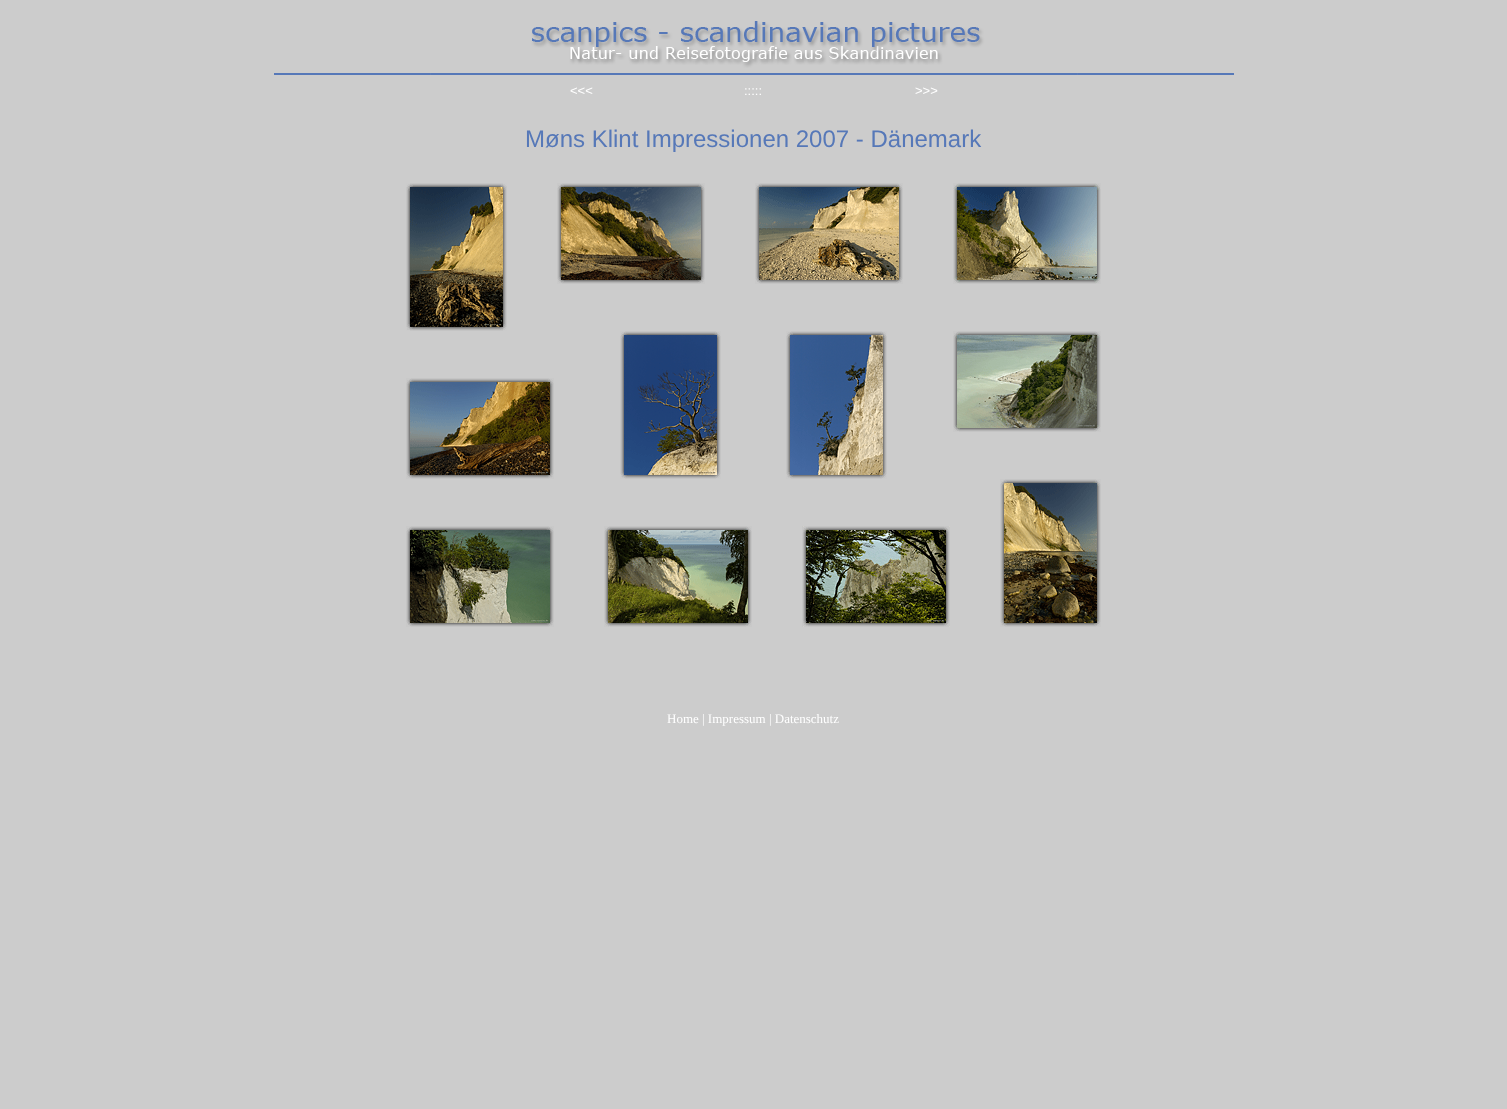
<svg xmlns="http://www.w3.org/2000/svg" xmlns:xlink="http://www.w3.org/1999/xlink" width="1507" height="1109" viewBox="0 0 1507 1109">
<style>
.cls-1{font:13px Liberation Sans;fill:#ffffff}
.cls-2{font:24px Liberation Sans;fill:#5678b8}
.cls-3{font:13px Liberation Serif;fill:#ffffff}
</style>
<rect width="100%" height="100%" fill="#cccccc"/>
<image xlink:href="image0.png" x="274" y="21" width="960" height="54"/>
<image xlink:href="image1.png" x="406" y="183" width="101" height="148"/>
<image xlink:href="image2.png" x="557" y="183" width="148" height="101"/>
<image xlink:href="image3.png" x="755" y="183" width="148" height="101"/>
<image xlink:href="image4.png" x="953" y="183" width="148" height="101"/>
<image xlink:href="image5.png" x="406" y="378" width="148" height="101"/>
<image xlink:href="image6.png" x="620" y="331" width="101" height="148"/>
<image xlink:href="image7.png" x="786" y="331" width="101" height="148"/>
<image xlink:href="image8.png" x="953" y="331" width="148" height="101"/>
<image xlink:href="image9.png" x="406" y="526" width="148" height="101"/>
<image xlink:href="image10.png" x="604" y="526" width="148" height="101"/>
<image xlink:href="image11.png" x="802" y="526" width="148" height="101"/>
<image xlink:href="image12.png" x="1000" y="479" width="101" height="148"/>
<text class="cls-1" x="570" y="95">&lt;&lt;&lt;</text>
<text class="cls-1" x="744" y="95">:::::</text>
<text class="cls-1" x="915" y="95">&gt;&gt;&gt;</text>
<text class="cls-2" x="525" y="147">Møns Klint Impressionen 2007 - Dänemark</text>
<text class="cls-3" x="667" y="723">Home | Impressum | Datenschutz</text>
</svg>
